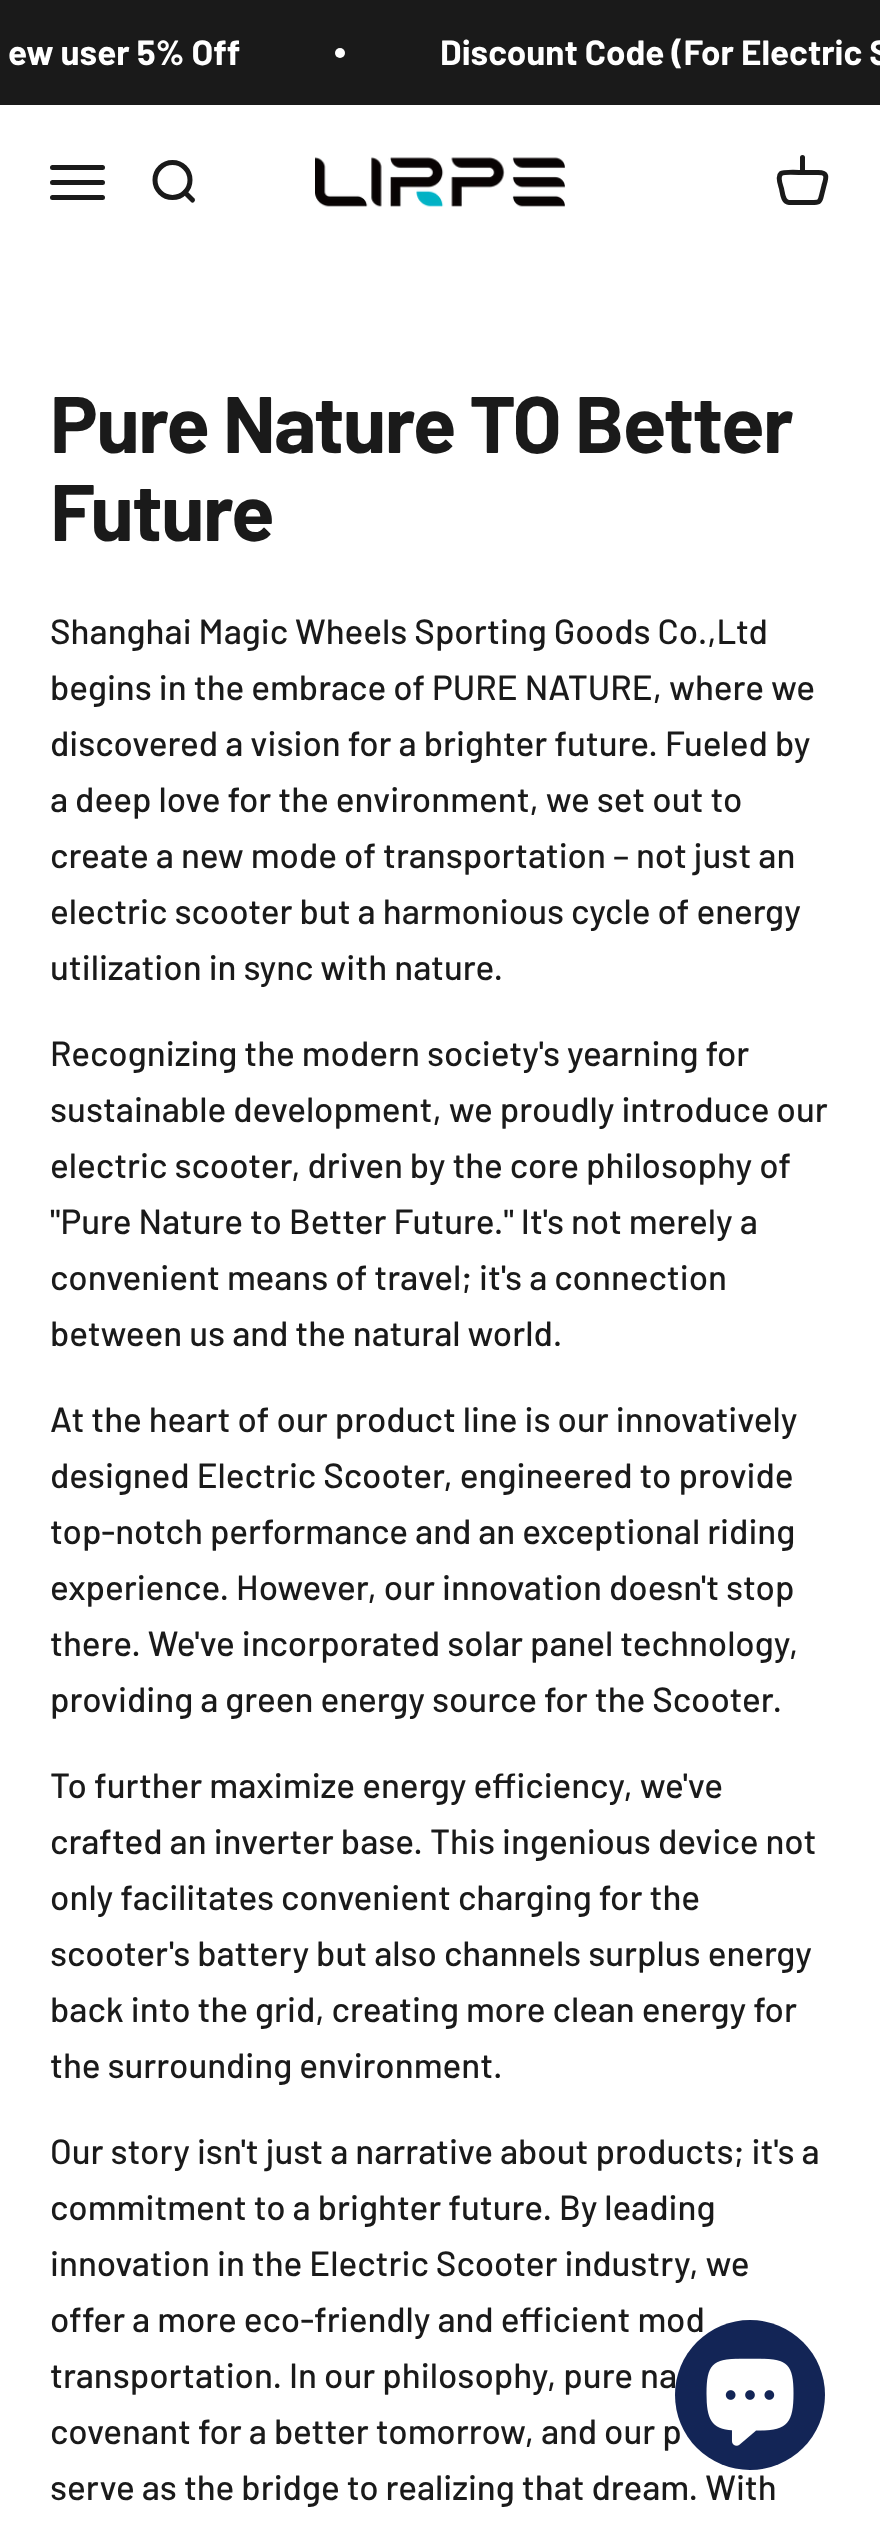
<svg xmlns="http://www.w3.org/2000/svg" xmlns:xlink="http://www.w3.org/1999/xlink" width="880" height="2522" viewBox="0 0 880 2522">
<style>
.cls-1{font:bold 35px Barlow;fill:#ffffff}
.cls-2{font:bold 80px Barlow;letter-spacing:-1.6px;fill:#1a1a1a}
.cls-3{font:500 35px Barlow;fill:#1a1a1a}
</style>
<rect width="100%" height="100%" fill="#ffffff"/>
<rect fill="#1a1a1a" x="0" y="0" width="880" height="105"/>
<circle fill="#ffffff" cx="340" cy="53" r="5"/>
<path fill="none" stroke="#1a1a1a" stroke-width="5" stroke-linecap="round" d="M52.5 167.5H102.5M52.5 182.5H102.5M52.5 197.5H102.5"/>
<circle fill="none" stroke="#1a1a1a" stroke-width="5" cx="172.5" cy="180" r="17.5"/>
<path fill="none" stroke="#1a1a1a" stroke-width="5" stroke-linecap="round" stroke-linejoin="round" d="M185 192.5L192.5 200"/>
<image xlink:href="image0.png" x="315" y="157" width="250" height="50"/>
<path fill="none" stroke="#1a1a1a" stroke-width="5" stroke-linecap="round" stroke-linejoin="round" d="M802.5 172.5C798.5 172.5 783.5 171.5 781 173.5C777 177 780.5 185 781.5 188.5C782.5 193 783 202.5 789 202.5H811.5C819 202.5 820 202.5 821.5 195.5L824 185.5C826.5 177 828 172.5 818 172.5ZM802.5 172.5V157.5"/>
<text class="cls-1" x="8" y="65">ew user 5% Off</text>
<text class="cls-1" x="440" y="65">Discount Code (For Electric S</text>
<text class="cls-2"><tspan x="50" y="453">Pure Nature TO Better</tspan><tspan x="50" y="541">Future</tspan></text>
<text class="cls-3"><tspan x="50" y="644">Shanghai Magic Wheels Sporting Goods Co.,Ltd</tspan><tspan x="50" y="700">begins in the embrace of PURE NATURE, where we</tspan><tspan x="50" y="756">discovered a vision for a brighter future. Fueled by</tspan><tspan x="50" y="812">a deep love for the environment, we set out to</tspan><tspan x="50" y="868">create a new mode of transportation – not just an</tspan><tspan x="50" y="924">electric scooter but a harmonious cycle of energy</tspan><tspan x="50" y="980">utilization in sync with nature.</tspan></text>
<text class="cls-3"><tspan x="50" y="1066">Recognizing the modern society's yearning for</tspan><tspan x="50" y="1122">sustainable development, we proudly introduce our</tspan><tspan x="50" y="1178">electric scooter, driven by the core philosophy of</tspan><tspan x="50" y="1234">"Pure Nature to Better Future." It's not merely a</tspan><tspan x="50" y="1290">convenient means of travel; it's a connection</tspan><tspan x="50" y="1346">between us and the natural world.</tspan></text>
<text class="cls-3"><tspan x="50" y="1432">At the heart of our product line is our innovatively</tspan><tspan x="50" y="1488">designed Electric Scooter, engineered to provide</tspan><tspan x="50" y="1544">top-notch performance and an exceptional riding</tspan><tspan x="50" y="1600">experience. However, our innovation doesn't stop</tspan><tspan x="50" y="1656">there. We've incorporated solar panel technology,</tspan><tspan x="50" y="1712">providing a green energy source for the Scooter.</tspan></text>
<text class="cls-3"><tspan x="50" y="1798">To further maximize energy efficiency, we've</tspan><tspan x="50" y="1854">crafted an inverter base. This ingenious device not</tspan><tspan x="50" y="1910">only facilitates convenient charging for the</tspan><tspan x="50" y="1966">scooter's battery but also channels surplus energy</tspan><tspan x="50" y="2022">back into the grid, creating more clean energy for</tspan><tspan x="50" y="2078">the surrounding environment.</tspan></text>
<text class="cls-3"><tspan x="50" y="2164">Our story isn't just a narrative about products; it's a</tspan><tspan x="50" y="2220">commitment to a brighter future. By leading</tspan><tspan x="50" y="2276">innovation in the Electric Scooter industry, we</tspan><tspan x="50" y="2332">offer a more eco-friendly and efficient mod</tspan><tspan x="50" y="2388">transportation. In our philosophy, pure na</tspan><tspan x="50" y="2444">covenant for a better tomorrow, and our p</tspan><tspan x="50" y="2500">serve as the bridge to realizing that dream. With</tspan></text>
<circle fill="#132556" cx="750" cy="2395" r="75"/>
<image xlink:href="image1.png" x="706" y="2358" width="88" height="88"/>
</svg>
